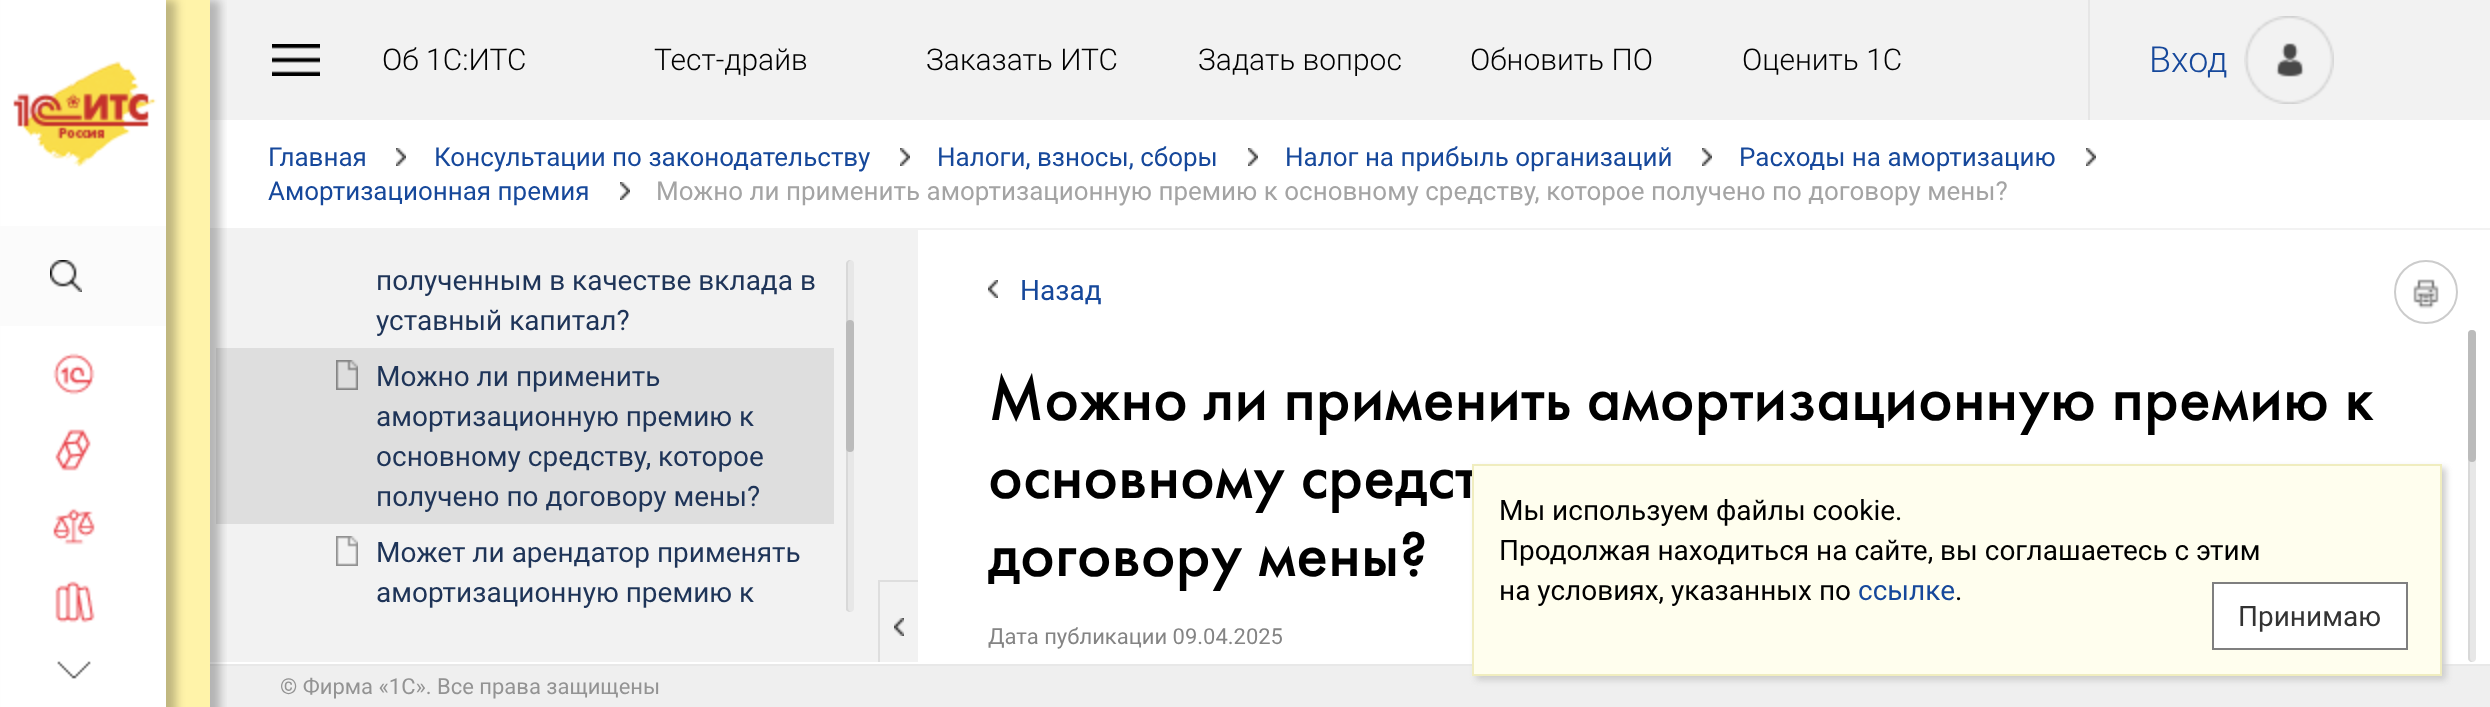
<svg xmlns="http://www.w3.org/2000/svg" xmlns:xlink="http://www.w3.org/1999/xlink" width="2490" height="707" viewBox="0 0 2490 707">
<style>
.cls-1{font:300 30px Roboto;fill:#000000}
.cls-2{font:300 36px Roboto;fill:#16489b}
.cls-3{font:26px Roboto;fill:#16489b}
.cls-4{font:26px Roboto;fill:#a4a4a4}
.cls-5{font:28px Roboto;fill:#1e3458}
.cls-6{font:28px Roboto;fill:#16489b}
.cls-7{font:28px Roboto;fill:#000000}
.cls-8{font:28px Roboto;fill:#333333}
.cls-9{font:22px Roboto;fill:#939393}
</style>
<defs>
<clipPath id="clip1"><rect x="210" y="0" width="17" height="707"/></clipPath>
</defs>
<rect width="100%" height="100%" fill="#ffffff"/>
<rect fill="#fff3a9" x="166" y="0" width="44" height="707"/>
<rect fill="#000000" fill-opacity="0.25" filter="blur(5px)" x="10" y="0" width="166" height="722"/>
<rect fill="#ffffff" x="1" y="0" width="165" height="707"/>
<image xlink:href="image0.png" x="53" y="353" width="42" height="42"/>
<image xlink:href="image1.png" x="55" y="429" width="36" height="42"/>
<image xlink:href="image2.png" x="53" y="508" width="42" height="37"/>
<image xlink:href="image3.png" x="55" y="581" width="40" height="42"/>
<rect fill="#f2f2f2" x="210" y="0" width="2280" height="120"/>
<rect fill="#f2f2f2" x="210" y="228" width="2280" height="2"/>
<rect fill="#f2f2f2" x="210" y="230" width="708" height="432"/>
<rect fill="#dedede" x="216" y="348" width="618" height="176"/>
<rect fill="#efefef" x="210" y="666" width="2280" height="41"/>
<rect fill="#e8e8e8" x="210" y="664" width="2280" height="2"/>
<g clip-path="url(#clip1)">
<rect fill="#000000" fill-opacity="0.25" filter="blur(5px)" x="184" y="0" width="36" height="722"/>
</g>
<image xlink:href="image4.png" x="13" y="61" width="144" height="106"/>
<rect fill="#fbfbfb" x="0" y="226" width="166" height="100"/>
<image xlink:href="image5.png" x="50" y="260" width="32" height="32"/>
<image xlink:href="image6.png" x="57" y="661" width="34" height="18"/>
<image xlink:href="image7.png" x="272" y="44" width="48" height="32"/>
<rect fill="#e6e6e6" x="2088" y="0" width="2" height="120"/>
<image xlink:href="image8.png" x="2244" y="16" width="90" height="88"/>
<image xlink:href="image9.png" x="396" y="148" width="10" height="18"/>
<image xlink:href="image9.png" x="900" y="148" width="10" height="18"/>
<image xlink:href="image9.png" x="1248" y="148" width="10" height="18"/>
<image xlink:href="image9.png" x="1702" y="148" width="10" height="18"/>
<image xlink:href="image9.png" x="2086" y="148" width="10" height="18"/>
<image xlink:href="image9.png" x="620" y="182" width="10" height="18"/>
<image xlink:href="image10.png" x="336" y="360" width="22" height="30"/>
<image xlink:href="image11.png" x="336" y="536" width="22" height="30"/>
<rect fill="#e7e7e7" x="846" y="260" width="8" height="352" rx="4"/>
<path fill="#d8d8d8" d="M850 260C848 260 846 262 846 264V610C847 611 849 612 851 612C849 611 848 610 848 608V264C848 262 849 261 851 260Z"/>
<rect fill="#bbbbbb" x="846" y="320" width="8" height="132" rx="4"/>
<rect fill="#dedede" x="878" y="580" width="40" height="2"/>
<rect fill="#dedede" x="878" y="580" width="2" height="82"/>
<image xlink:href="image12.png" x="894" y="618" width="10" height="18"/>
<image xlink:href="image13.png" x="988" y="280" width="10" height="18"/>
<image xlink:href="image14.png" x="2413" y="279" width="26" height="30"/>
<circle fill="none" stroke="#cccccc" stroke-width="2" cx="2426" cy="292" r="31"/>
<image xlink:href="image15.png" x="988" y="373" width="1386" height="276"/>
<rect fill="#e7e7e7" x="2468" y="330" width="8" height="332" rx="4"/>
<path fill="#d8d8d8" d="M2472 330C2470 330 2468 332 2468 334V658C2468 660 2470 662 2472 662H2473C2471 661 2470 660 2470 658V334C2470 332 2471 331 2473 330Z"/>
<rect fill="#bbbbbb" x="2468" y="330" width="8" height="132" rx="4"/>
<rect fill="#cccccc" filter="blur(3px)" x="1476" y="468" width="970" height="212"/>
<rect fill="#fffeee" stroke="#f0edbf" stroke-width="2" x="1473" y="465" width="968" height="210"/>
<rect fill="#ffffff" stroke="#7f7f7f" stroke-width="2" x="2213" y="583" width="194" height="66"/>
<text class="cls-1" x="382" y="70">Об 1С:ИТС</text>
<text class="cls-1" x="654" y="70">Тест-драйв</text>
<text class="cls-1" x="926" y="70">Заказать ИТС</text>
<text class="cls-1" x="1198" y="70">Задать вопрос</text>
<text class="cls-1" x="1470" y="70">Обновить ПО</text>
<text class="cls-1" x="1742" y="70">Оценить 1С</text>
<text class="cls-2" x="2149" y="72">Вход</text>
<text class="cls-3" x="268" y="166">Главная</text>
<text class="cls-3" x="434" y="166">Консультации по законодательству</text>
<text class="cls-3" x="937" y="166">Налоги, взносы, сборы</text>
<text class="cls-3" x="1285" y="166">Налог на прибыль организаций</text>
<text class="cls-3" x="1739" y="166">Расходы на амортизацию</text>
<text class="cls-3" x="268" y="200">Амортизационная премия</text>
<text class="cls-4" x="656" y="200">Можно ли применить амортизационную премию к основному средству, которое получено по договору мены?</text>
<text class="cls-5"><tspan x="376" y="290">полученным в качестве вклада в</tspan><tspan x="376" y="330">уставный капитал?</tspan></text>
<text class="cls-5"><tspan x="376" y="386">Можно ли применить</tspan><tspan x="376" y="426">амортизационную премию к</tspan><tspan x="376" y="466">основному средству, которое</tspan><tspan x="376" y="506">получено по договору мены?</tspan></text>
<text class="cls-5"><tspan x="376" y="562">Может ли арендатор применять</tspan><tspan x="376" y="602">амортизационную премию к</tspan></text>
<text class="cls-6" x="1020" y="300">Назад</text>
<text class="cls-7"><tspan x="1499" y="520">Мы используем файлы cookie.</tspan><tspan x="1499" y="560">Продолжая находиться на сайте, вы соглашаетесь с этим</tspan><tspan x="1499" y="600">на условиях, указанных по</tspan></text>
<text class="cls-6" x="1858" y="600">ссылке</text>
<text class="cls-7" x="1955" y="600">.</text>
<text class="cls-8" x="2238" y="626">Принимаю</text>
<text class="cls-9" x="280" y="694">© Фирма «1С». Все права защищены</text>
</svg>
